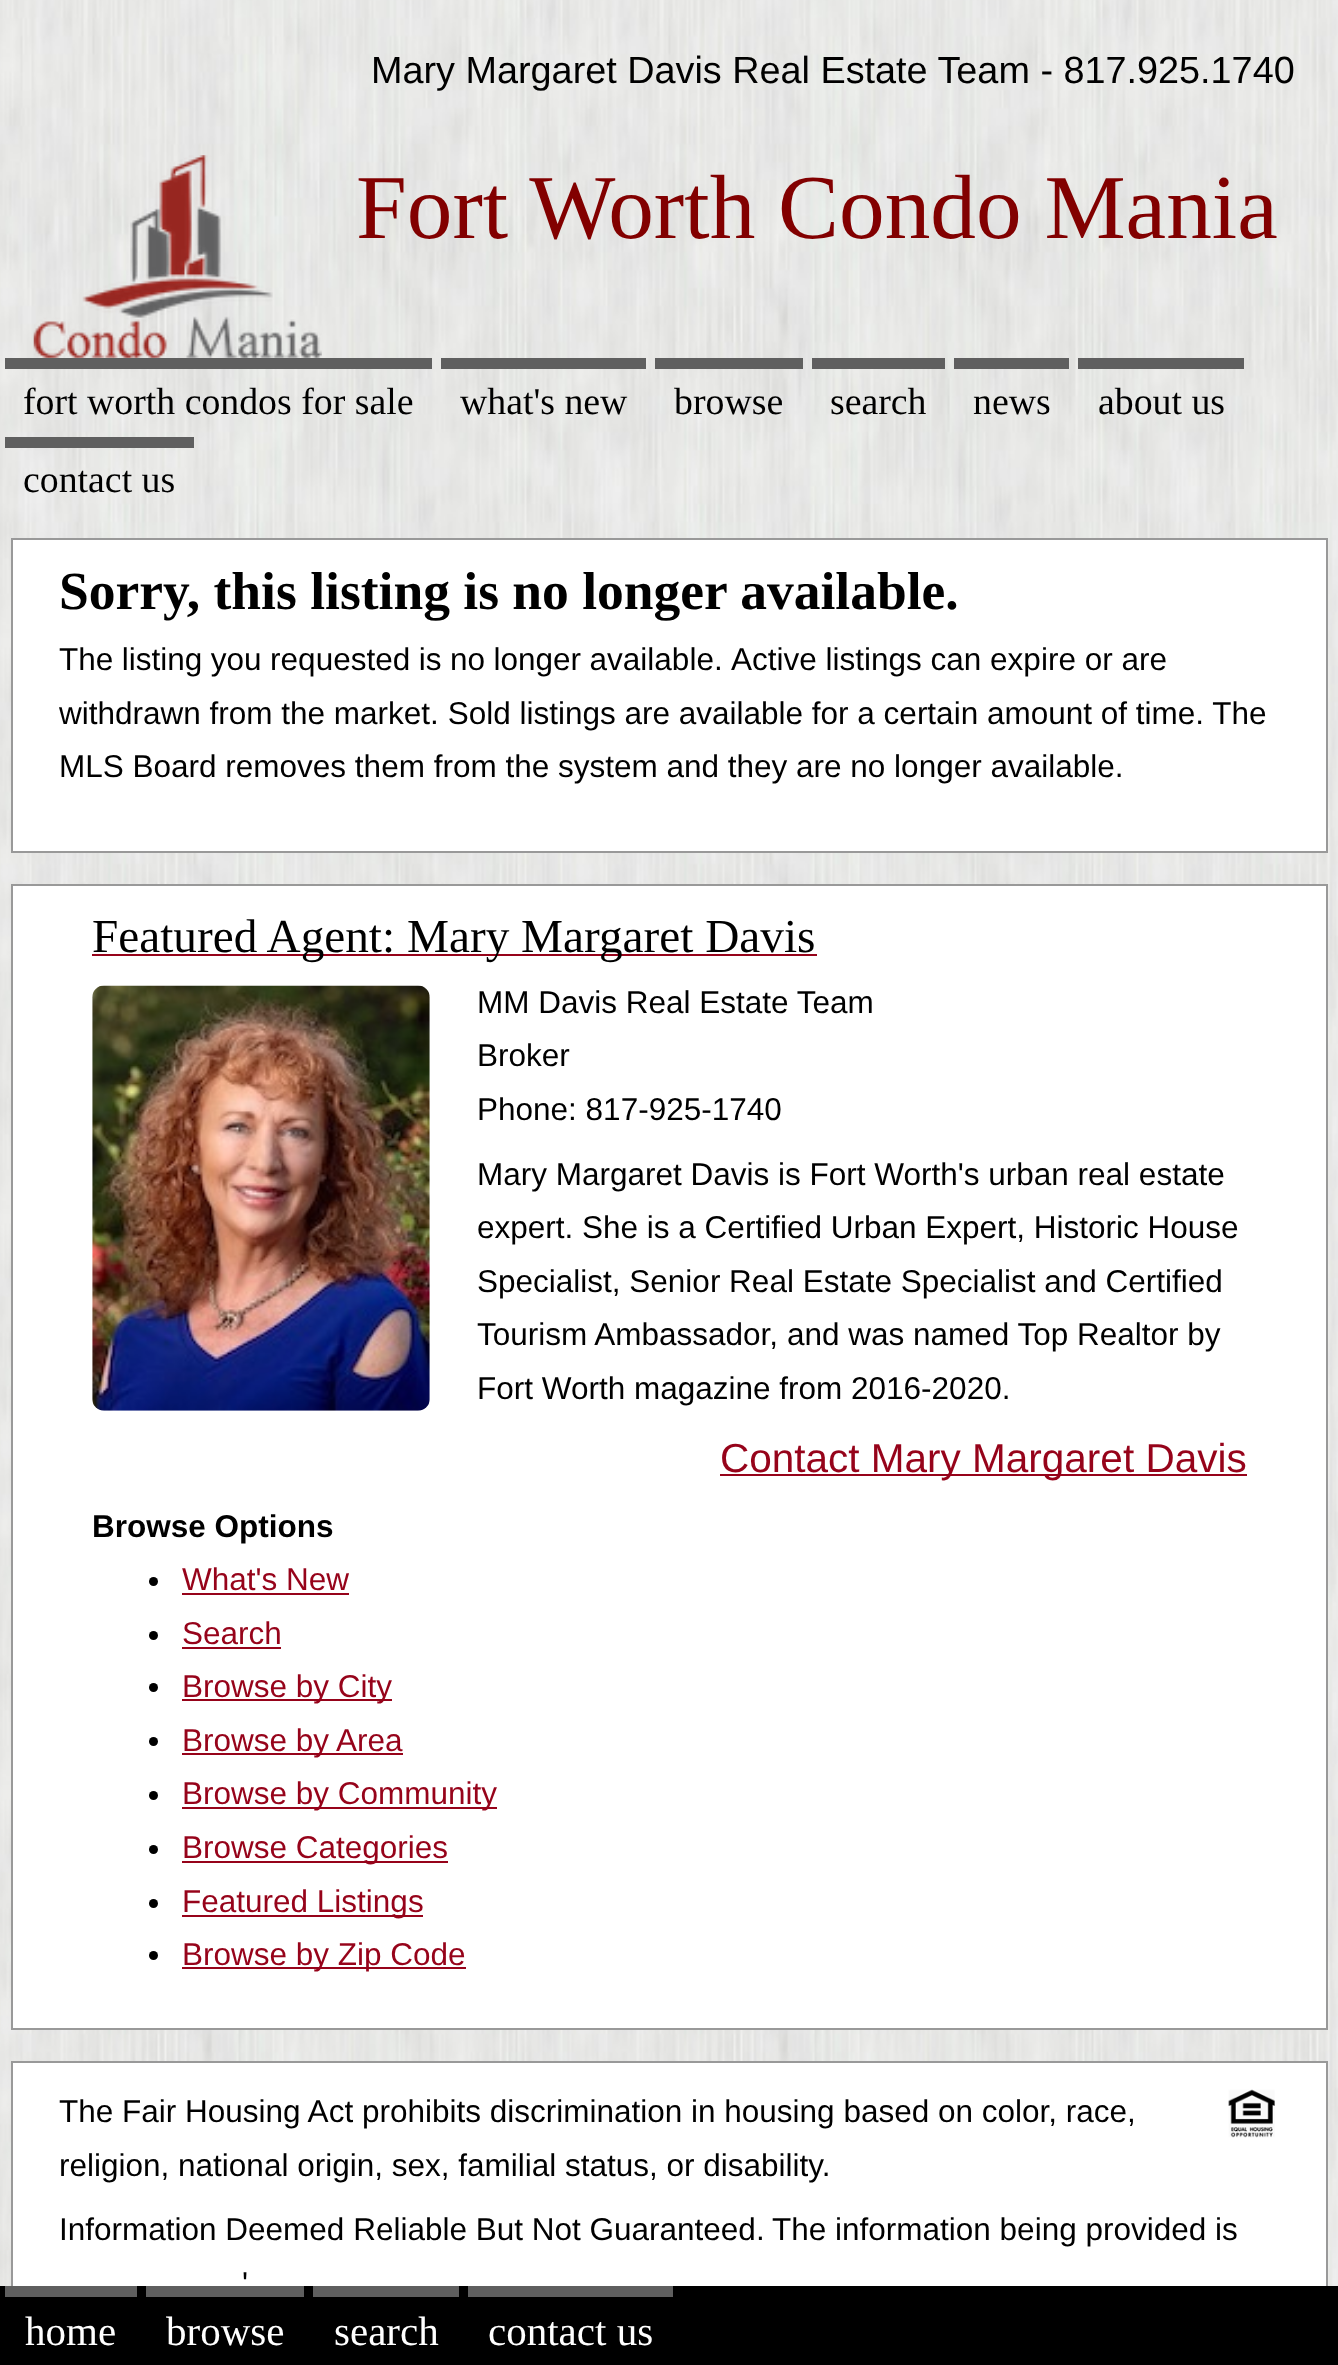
<svg xmlns="http://www.w3.org/2000/svg" xmlns:xlink="http://www.w3.org/1999/xlink" width="1338" height="2365" viewBox="0 0 1338 2365">
<style>
.cls-1{font:37.8px Liberation Sans;fill:#000000}
.cls-2{font:91.3px Liberation Serif;fill:#820000}
.cls-3{font:37.8px Liberation Serif;fill:#000000}
.cls-4{font:bold 53.5px Liberation Serif;fill:#000000}
.cls-5{font:31.5px Liberation Sans;fill:#000000}
.cls-6{font:47.25px Liberation Serif;fill:#000000}
.cls-7{font:40.5px Liberation Sans;fill:#96031a}
.cls-8{font:bold 31.5px Liberation Sans;fill:#000000}
.cls-9{font:31.5px Liberation Sans;fill:#96031a}
.cls-10{font:41px Liberation Serif;fill:#ffffff}
</style>
<rect width="100%" height="100%" fill="#ffffff"/>
<image xlink:href="image0.png" x="0" y="0" width="1338" height="2286"/>
<image xlink:href="image1.png" x="33" y="155" width="289" height="203"/>
<rect fill="#5f5f5f" x="5" y="358" width="427" height="11"/>
<rect fill="#5f5f5f" x="441" y="358" width="205" height="11"/>
<rect fill="#5f5f5f" x="655" y="358" width="148" height="11"/>
<rect fill="#5f5f5f" x="812" y="358" width="133" height="11"/>
<rect fill="#5f5f5f" x="954" y="358" width="115" height="11"/>
<rect fill="#5f5f5f" x="1078" y="358" width="166" height="11"/>
<rect fill="#5f5f5f" x="5" y="437" width="189" height="11"/>
<rect fill="#ffffff" stroke="#999999" stroke-width="2" x="12" y="539" width="1315" height="313"/>
<rect fill="#ffffff" stroke="#999999" stroke-width="2" x="12" y="885" width="1315" height="1144"/>
<rect fill="#96031a" x="92" y="954" width="725" height="2"/>
<image xlink:href="image2.png" x="92" y="985" width="338" height="426"/>
<rect fill="#96031a" x="720" y="1474" width="527" height="2"/>
<circle fill="#000000" cx="153.5" cy="1581.5" r="4.5"/>
<rect fill="#96031a" x="182" y="1593" width="167" height="2"/>
<circle fill="#000000" cx="153.5" cy="1635.5" r="4.5"/>
<rect fill="#96031a" x="182" y="1647" width="99" height="2"/>
<circle fill="#000000" cx="153.5" cy="1687.5" r="4.5"/>
<rect fill="#96031a" x="182" y="1699" width="210" height="2"/>
<circle fill="#000000" cx="153.5" cy="1741.5" r="4.5"/>
<rect fill="#96031a" x="182" y="1753" width="221" height="2"/>
<circle fill="#000000" cx="153.5" cy="1795.5" r="4.5"/>
<rect fill="#96031a" x="182" y="1807" width="315" height="2"/>
<circle fill="#000000" cx="153.5" cy="1849.5" r="4.5"/>
<rect fill="#96031a" x="182" y="1861" width="266" height="2"/>
<circle fill="#000000" cx="153.5" cy="1903.5" r="4.5"/>
<rect fill="#96031a" x="182" y="1915" width="241" height="2"/>
<circle fill="#000000" cx="153.5" cy="1955.5" r="4.5"/>
<rect fill="#96031a" x="182" y="1967" width="284" height="2"/>
<rect fill="#ffffff" x="13" y="2063" width="1313" height="223"/>
<rect fill="none" stroke="#999999" stroke-width="2" x="12" y="2062" width="1315" height="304"/>
<image xlink:href="image3.png" x="1228" y="2089" width="47" height="49"/>
<rect fill="#000000" x="0" y="2286" width="1338" height="79"/>
<rect fill="#5f5f5f" x="5" y="2286" width="132" height="11"/>
<rect fill="#5f5f5f" x="146" y="2286" width="158" height="11"/>
<rect fill="#5f5f5f" x="313" y="2286" width="146" height="11"/>
<rect fill="#5f5f5f" x="468" y="2286" width="205" height="11"/>
<text class="cls-1" x="371" y="83">Mary Margaret Davis Real Estate Team - 817.925.1740</text>
<text class="cls-2" x="356" y="238">Fort Worth Condo Mania</text>
<text class="cls-3" x="23" y="414">fort worth condos for sale</text>
<text class="cls-3" x="460" y="414">what's new</text>
<text class="cls-3" x="674" y="414">browse</text>
<text class="cls-3" x="830" y="414">search</text>
<text class="cls-3" x="973" y="414">news</text>
<text class="cls-3" x="1098" y="414">about us</text>
<text class="cls-3" x="23" y="492">contact us</text>
<text class="cls-4" x="59" y="609">Sorry, this listing is no longer available.</text>
<text class="cls-5" x="59" y="670" word-spacing="-0.25">The listing you requested is no longer available.</text>
<text class="cls-5" x="731" y="670">Active listings can expire or are</text>
<text class="cls-5"><tspan x="59" y="724">withdrawn from the market. Sold listings are available for a certain amount of time. The</tspan><tspan x="59" y="777">MLS Board removes them from the system and they are no longer available.</tspan></text>
<text class="cls-6" x="92" y="952">Featured Agent: Mary Margaret Davis</text>
<text class="cls-5"><tspan x="477" y="1013">MM Davis Real Estate Team</tspan><tspan x="477" y="1066">Broker</tspan><tspan x="477" y="1120">Phone: 817-925-1740</tspan></text>
<text class="cls-5"><tspan x="477" y="1185">Mary Margaret Davis is Fort Worth's urban real estate</tspan><tspan x="477" y="1238">expert. She is a Certified Urban Expert, Historic House</tspan><tspan x="477" y="1292">Specialist, Senior Real Estate Specialist and Certified</tspan><tspan x="477" y="1345">Tourism Ambassador, and was named Top Realtor by</tspan><tspan x="477" y="1399">Fort Worth magazine from 2016-2020.</tspan></text>
<text class="cls-7" x="720" y="1472">Contact Mary Margaret Davis</text>
<text class="cls-8" x="92" y="1537">Browse Options</text>
<text class="cls-9"><tspan x="182" y="1590">What's New</tspan><tspan x="182" y="1644">Search</tspan><tspan x="182" y="1697">Browse by City</tspan><tspan x="182" y="1751">Browse by Area</tspan><tspan x="182" y="1804">Browse by Community</tspan><tspan x="182" y="1858">Browse Categories</tspan><tspan x="182" y="1912">Featured Listings</tspan><tspan x="182" y="1965">Browse by Zip Code</tspan></text>
<text class="cls-5"><tspan x="59" y="2122">The Fair Housing Act prohibits discrimination in housing based on color, race,</tspan><tspan x="59" y="2176">religion, national origin, sex, familial status, or disability.</tspan></text>
<text class="cls-5" x="59" y="2240">Information Deemed Reliable But Not Guaranteed.</text>
<text class="cls-5" x="772" y="2240">The information being provided is</text>
<text class="cls-5" x="242" y="2294">'</text>
<text class="cls-10" x="25" y="2345">home</text>
<text class="cls-10" x="166" y="2345">browse</text>
<text class="cls-10" x="334" y="2345">search</text>
<text class="cls-10" x="488" y="2345">contact us</text>
</svg>
